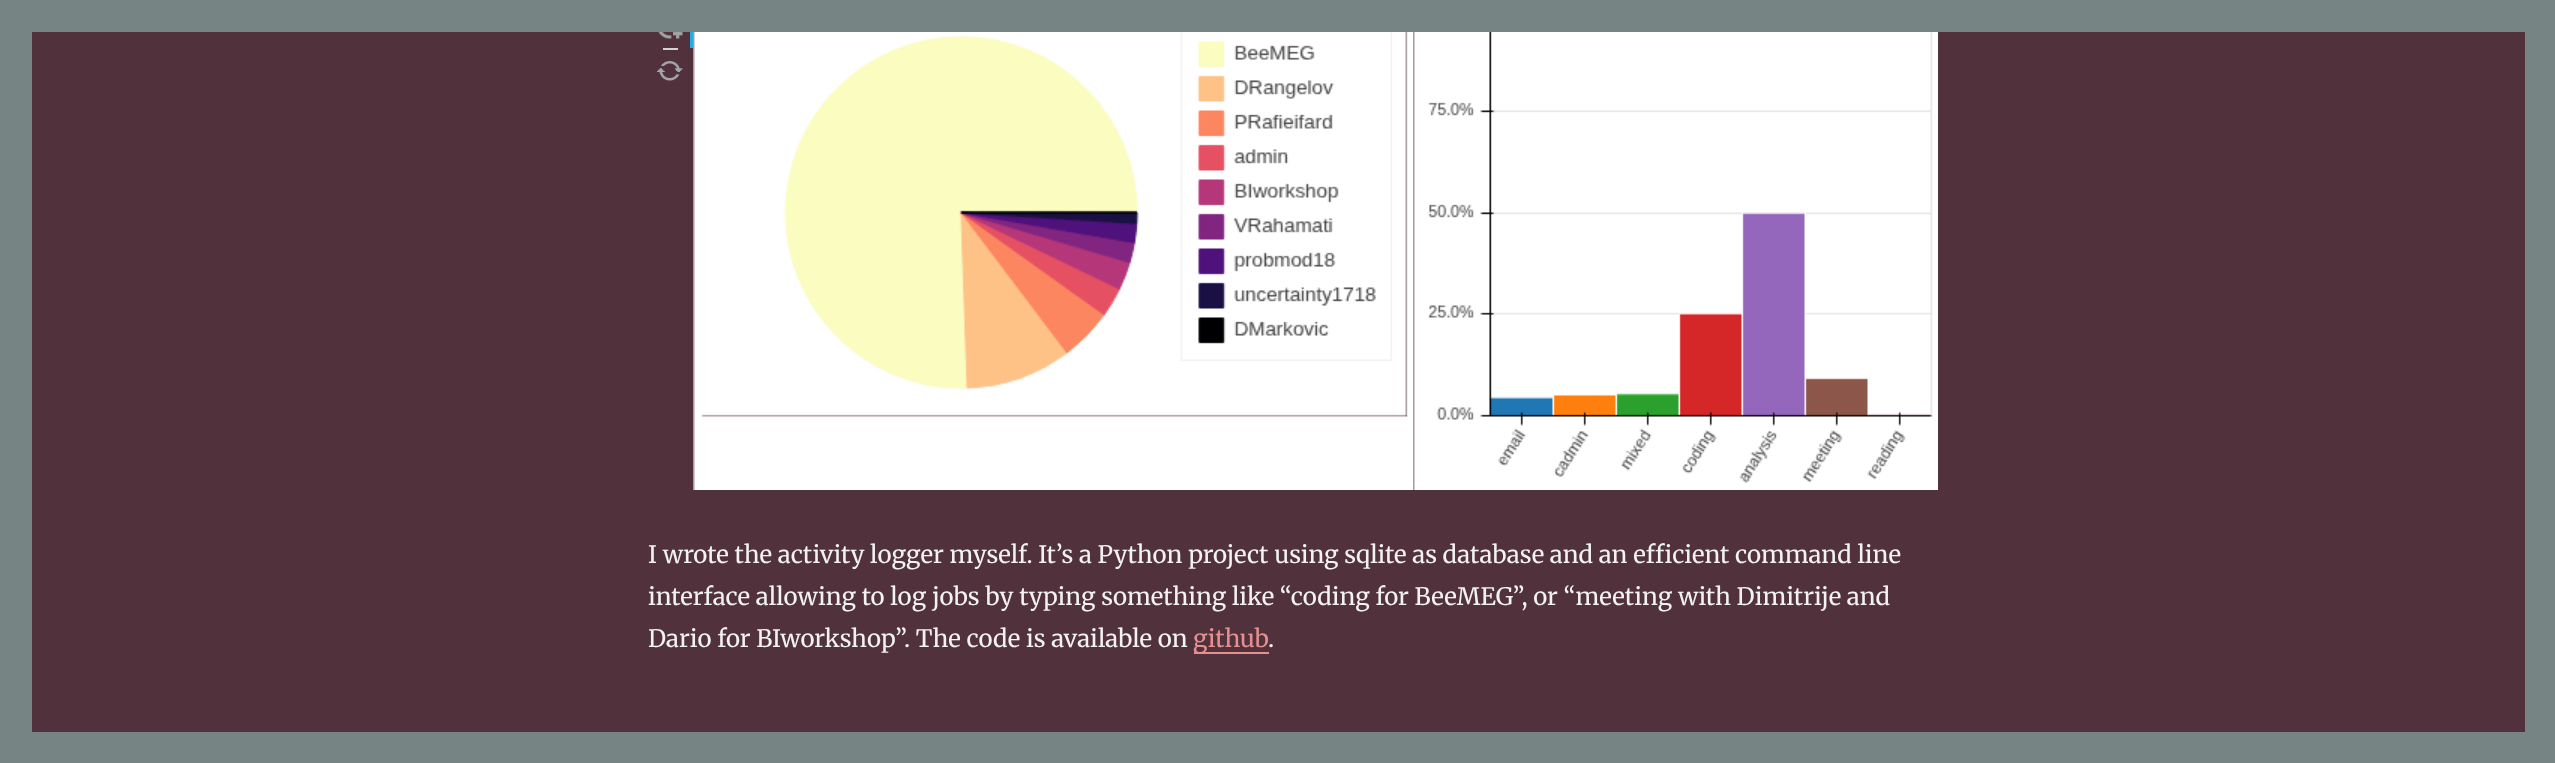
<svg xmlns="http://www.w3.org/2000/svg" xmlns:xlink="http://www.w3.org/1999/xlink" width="2555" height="763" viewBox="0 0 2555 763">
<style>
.cls-1{font:24px Merriweather;fill:#f2f2f2}
.cls-2{font:24px Merriweather;fill:#e59090}
</style>
<rect width="100%" height="100%" fill="#778484"/>
<rect fill="#51323c" x="32" y="32" width="2493" height="700"/>
<image xlink:href="image0.png" x="658" y="32" width="25" height="7"/>
<rect fill="#26aae1" x="690" y="32" width="3" height="16"/>
<rect fill="#d3d3d3" x="663" y="48" width="15" height="2"/>
<image xlink:href="image1.png" x="657" y="61" width="26" height="20"/>
<image xlink:href="image2.png" x="693" y="32" width="720" height="458"/>
<image xlink:href="image3.png" x="1413" y="32" width="525" height="458"/>
<rect fill="#e59090" x="1194" y="652" width="75" height="2"/>
<text class="cls-1"><tspan x="648" y="563">I wrote the activity logger myself. It’s a Python project using sqlite as database and an efficient command line</tspan><tspan x="648" y="605">interface allowing to log jobs by typing something like “coding for BeeMEG”, or “meeting with Dimitrije and</tspan><tspan x="648" y="647">Dario for BIworkshop”. The code is available on</tspan></text>
<text class="cls-2" x="1193" y="647">github</text>
<text class="cls-1" x="1268" y="647">.</text>
</svg>
